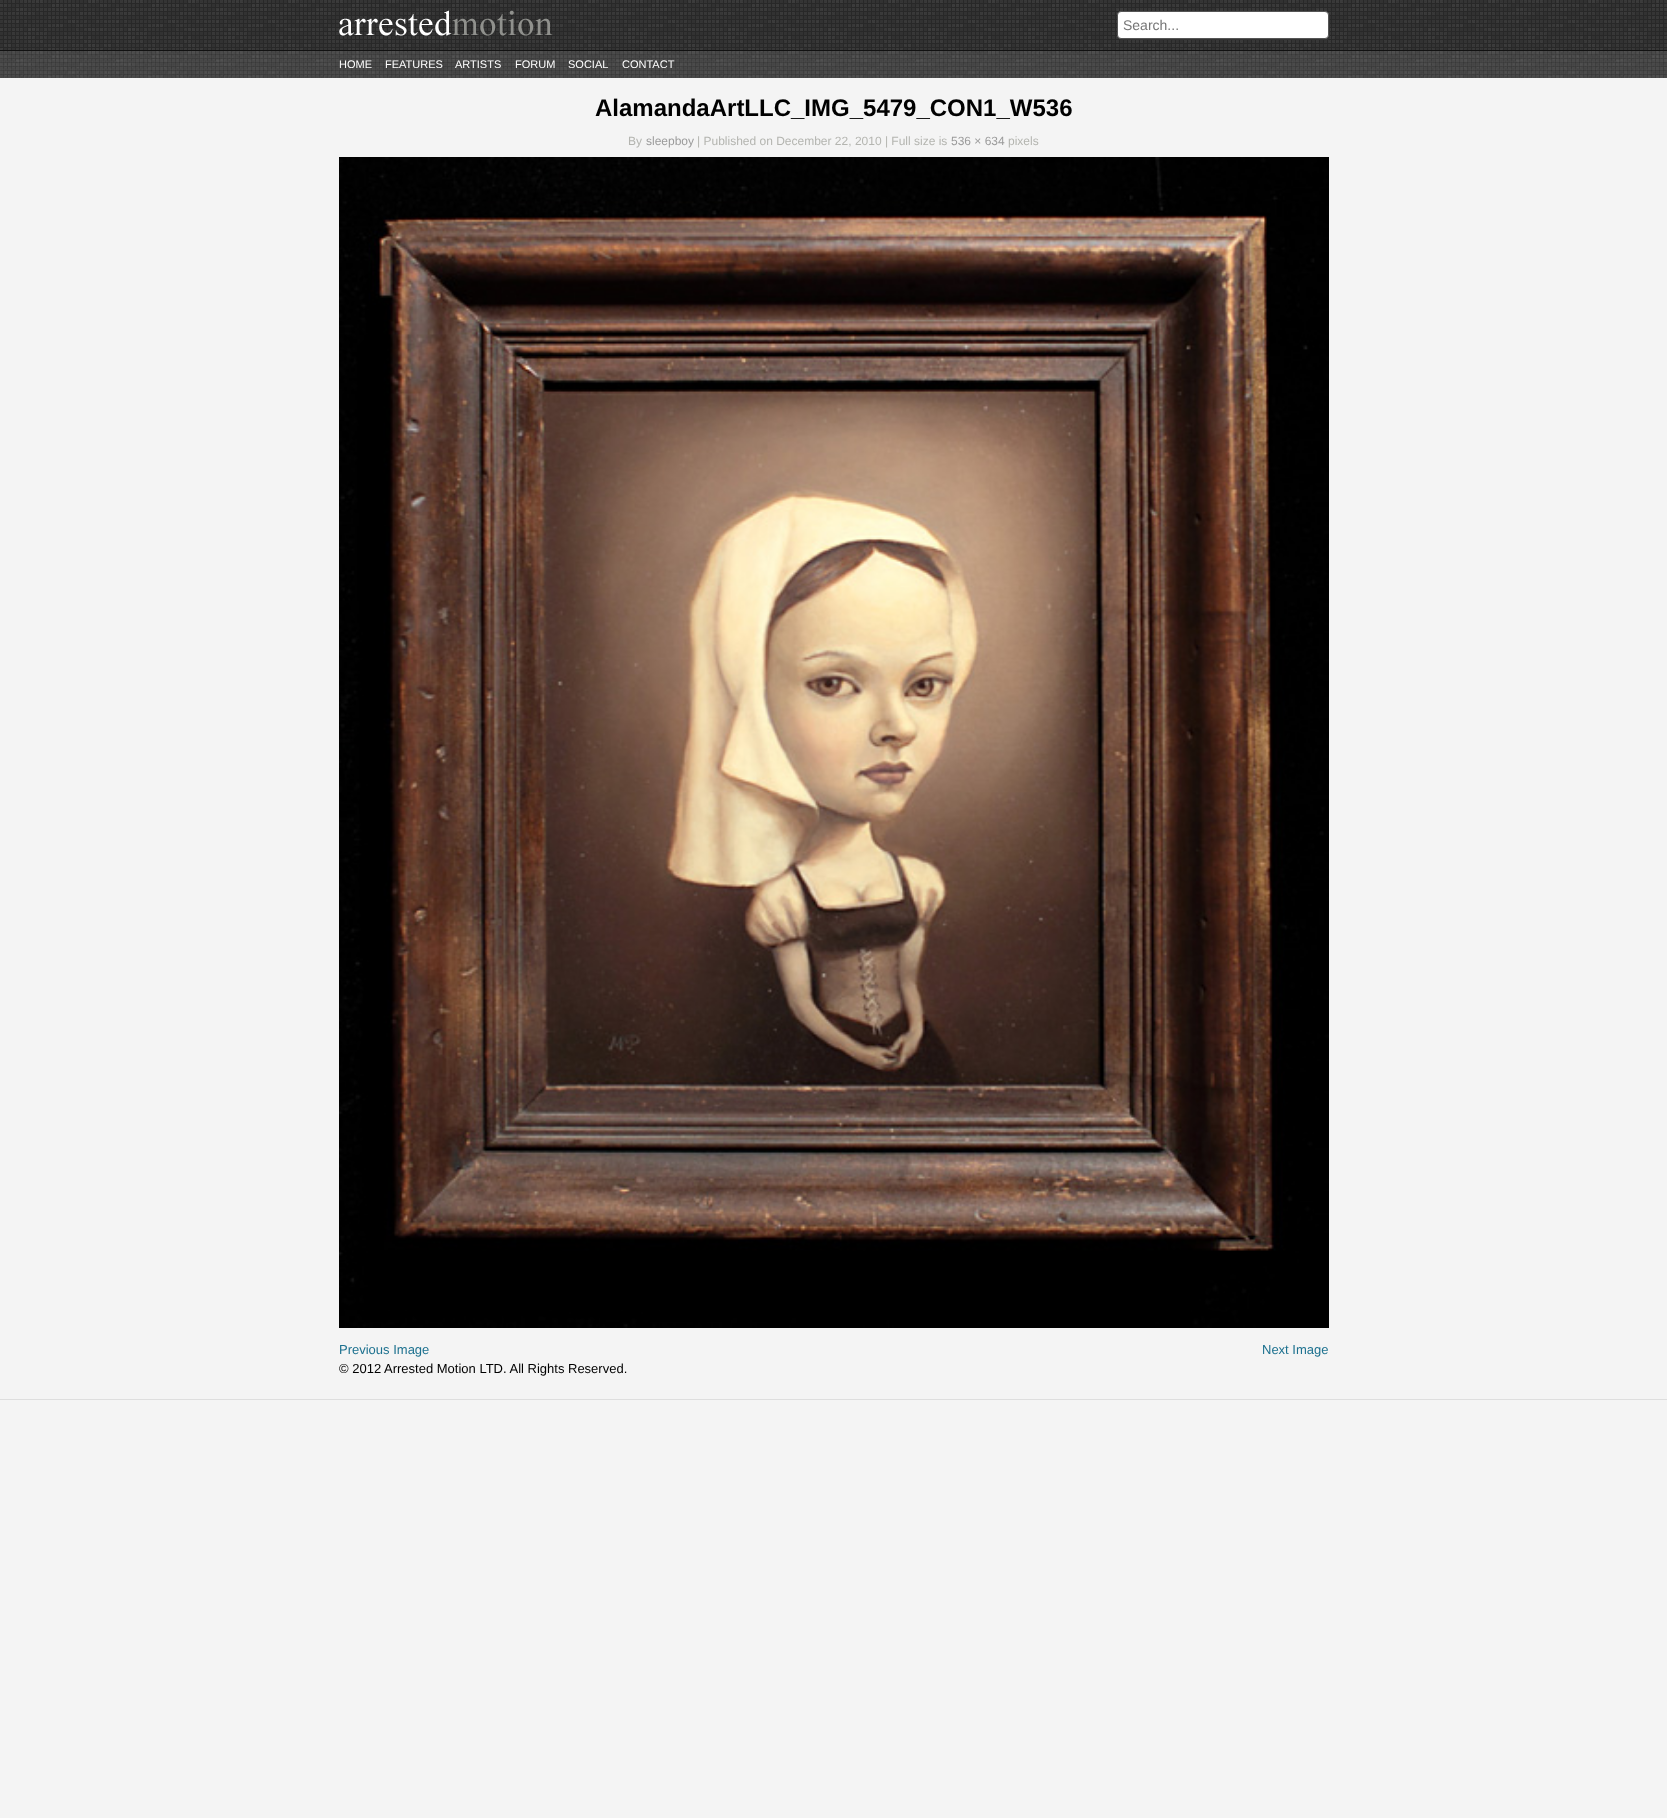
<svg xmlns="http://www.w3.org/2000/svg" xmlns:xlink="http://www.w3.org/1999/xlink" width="1667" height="1818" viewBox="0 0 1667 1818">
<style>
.cls-1{font:14px Liberation Sans;fill:#757575}
.cls-2{font:11px Liberation Sans;fill:#ffffff}
.cls-3{font:bold 24px Liberation Sans;fill:#000000}
.cls-4{font:12px Liberation Sans;fill:#b4b5b0}
.cls-5{font:12px Liberation Sans;fill:#9b9b9b}
.cls-6{font:13px Liberation Sans;fill:#1d718f}
.cls-7{font:13px Liberation Sans;fill:#000000}
</style>
<rect width="100%" height="100%" fill="#f4f4f4"/>
<image xlink:href="image0.png" x="0" y="0" width="1667" height="50"/>
<image xlink:href="image1.png" x="339" y="10" width="214" height="26"/>
<rect fill="#333333" filter="blur(0.5px)" x="1118" y="12" width="212" height="28" rx="4"/>
<rect fill="#ffffff" stroke="#555555" x="1117.5" y="11.5" width="211" height="27" rx="3.5"/>
<image xlink:href="image2.png" x="0" y="51" width="1667" height="27"/>
<rect fill="#111111" x="0" y="50" width="1667" height="1"/>
<image xlink:href="image3.png" x="339" y="157" width="990" height="1171"/>
<rect fill="#dedede" x="0" y="1399" width="1667" height="1"/>
<text class="cls-1" x="1123" y="30">Search...</text>
<text class="cls-2" x="339" y="68">HOME</text>
<text class="cls-2" x="385" y="68">FEATURES</text>
<text class="cls-2" x="455" y="68">ARTISTS</text>
<text class="cls-2" x="515" y="68">FORUM</text>
<text class="cls-2" x="568" y="68">SOCIAL</text>
<text class="cls-2" x="622" y="68">CONTACT</text>
<text class="cls-3" x="595" y="116">AlamandaArtLLC_IMG_5479_CON1_W536</text>
<text class="cls-4" x="628" y="145">By</text>
<text class="cls-5" x="646" y="145">sleepboy</text>
<text class="cls-4" x="697" y="145">| Published on December 22, 2010 | Full size is</text>
<text class="cls-5" x="951" y="145">536 × 634</text>
<text class="cls-4" x="1008" y="145">pixels</text>
<text class="cls-6" x="339" y="1354">Previous Image</text>
<text class="cls-6" x="1262" y="1354">Next Image</text>
<text class="cls-7" x="339" y="1373">© 2012 Arrested Motion LTD. All Rights Reserved.</text>
</svg>
